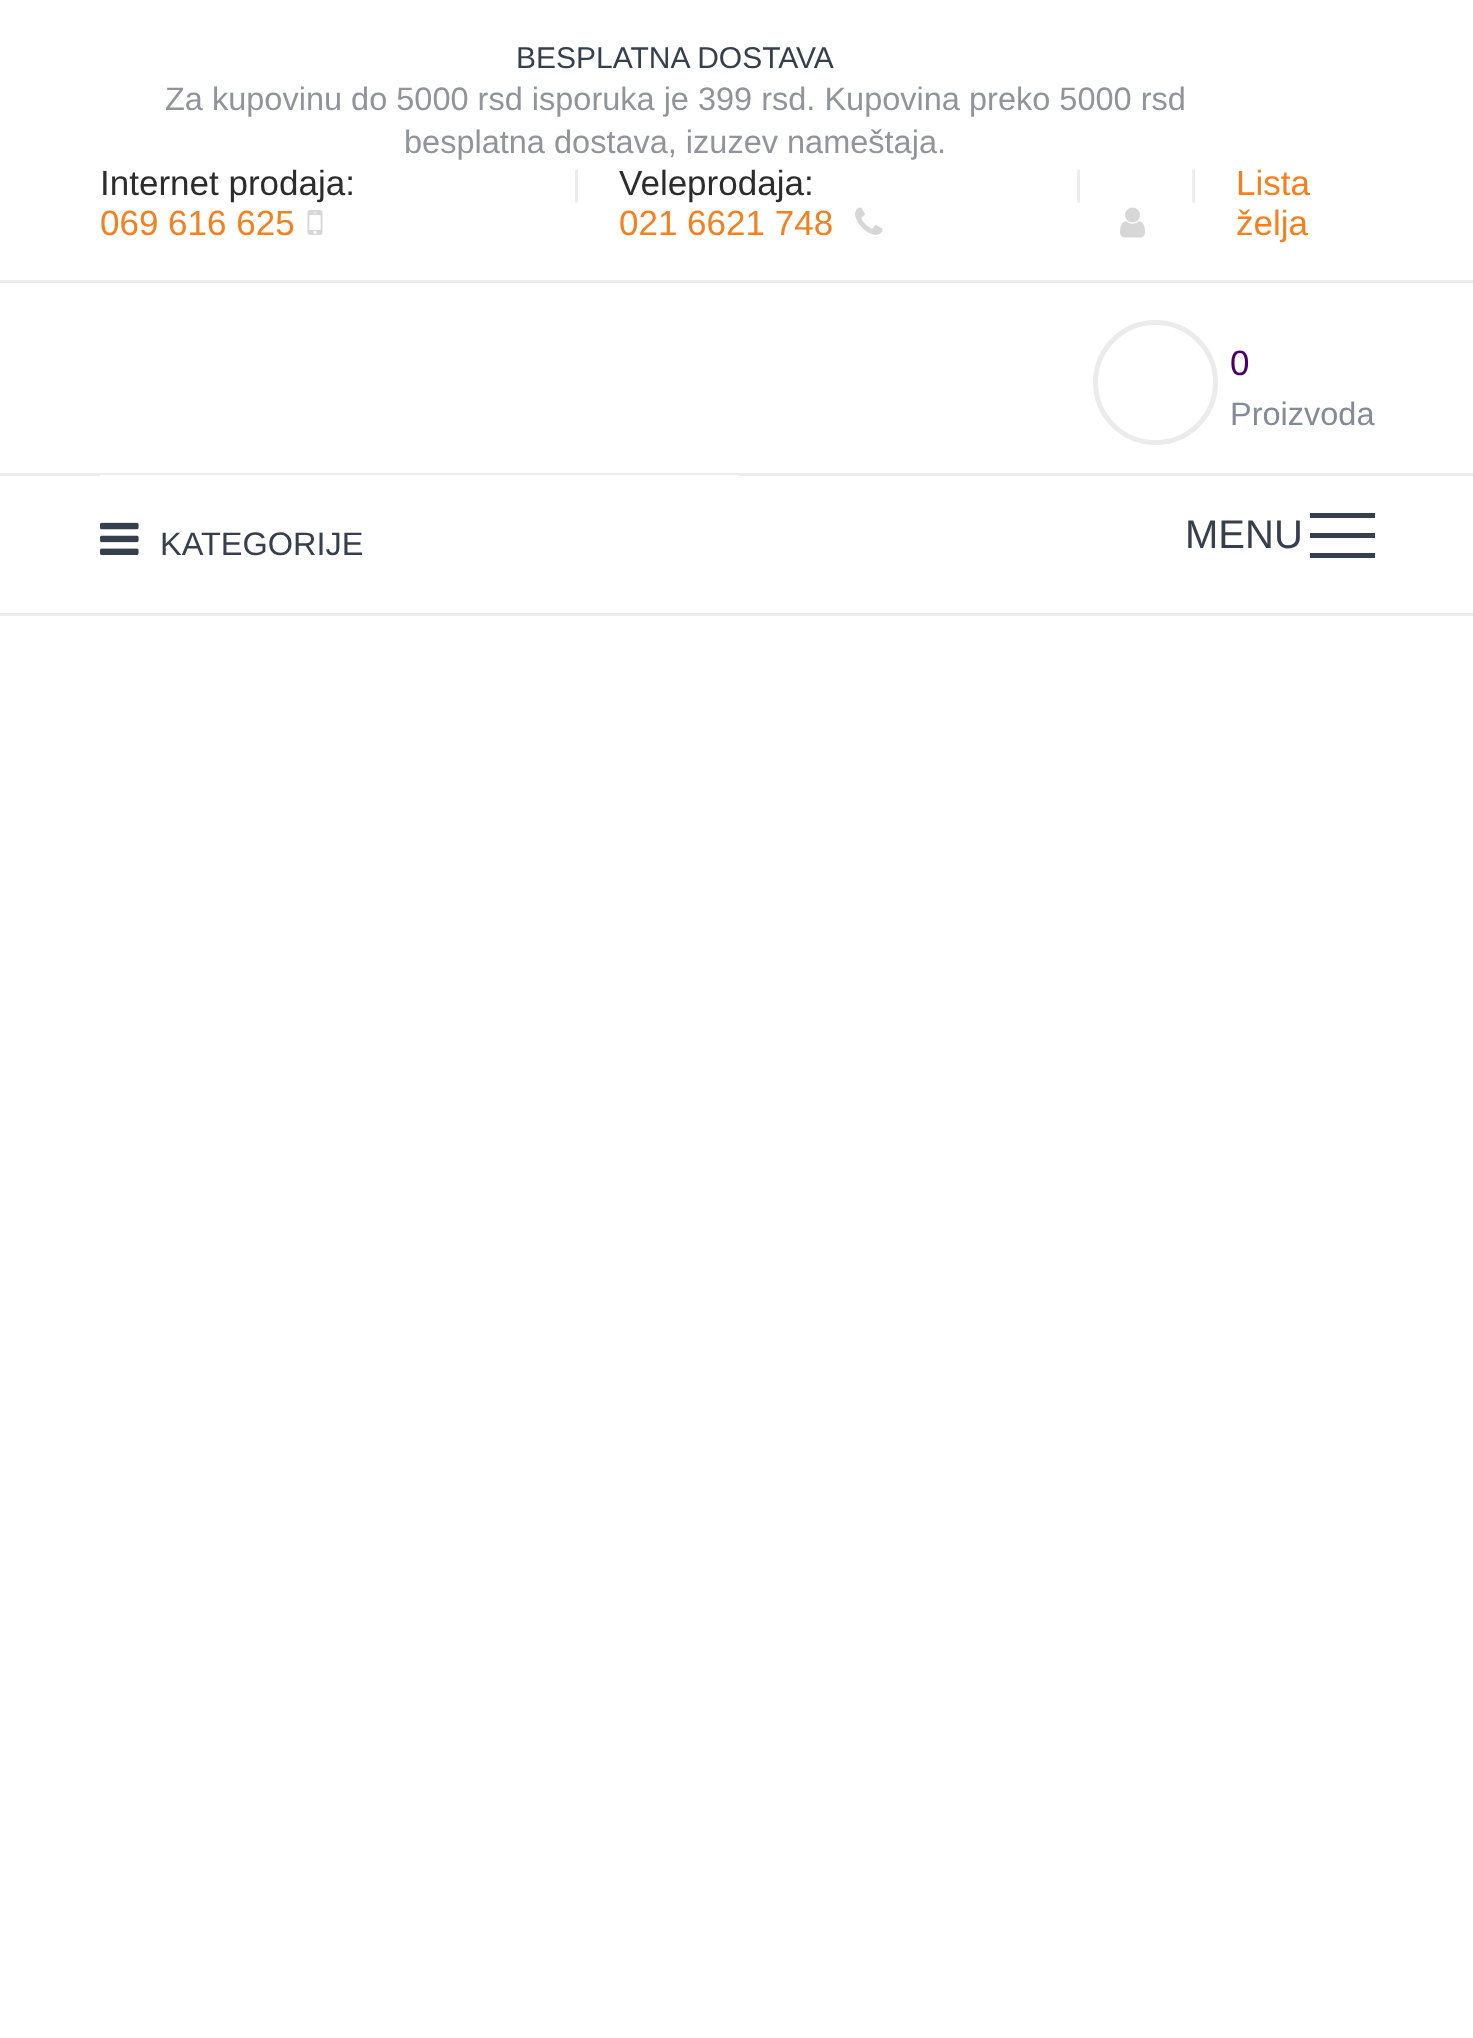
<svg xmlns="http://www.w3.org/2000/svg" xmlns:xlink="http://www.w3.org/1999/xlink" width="1473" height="2038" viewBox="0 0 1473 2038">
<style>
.cls-1{font:30px Liberation Sans;fill:#363f4d}
.cls-2{font:32.5px Liberation Sans;fill:#91959b}
.cls-3{font:35px Liberation Sans;fill:#2c2c2c}
.cls-4{font:35px Liberation Sans;fill:#f58020}
.cls-5{font:35px Liberation Sans;fill:#ebebeb}
.cls-6{font:35px Liberation Sans;fill:#4a006a}
.cls-7{font:32.5px Liberation Sans;fill:#838b98}
.cls-8{font:32.5px Liberation Sans;fill:#363f4d}
.cls-9{font:40px Liberation Sans;fill:#363f4d}
</style>
<rect width="100%" height="100%" fill="#ffffff"/>
<rect fill="#ededed" x="0" y="280" width="1473" height="3"/>
<image xlink:href="image0.png" x="307" y="210" width="16" height="25"/>
<image xlink:href="image1.png" x="855" y="207" width="28" height="28"/>
<image xlink:href="image2.png" x="1120" y="207" width="25" height="31"/>
<rect fill="#ededed" x="0" y="473" width="1473" height="3"/>
<circle fill="none" stroke="#ebebeb" stroke-width="5" cx="1155.5" cy="382.5" r="60"/>
<rect fill="#ededed" x="0" y="613" width="1473" height="3"/>
<rect fill="#ffffff" x="100" y="475" width="638" height="1"/>
<image xlink:href="image3.png" x="100" y="522" width="39" height="33"/>
<rect fill="#363f4d" x="1310" y="533" width="65" height="5"/>
<rect fill="#363f4d" x="1310" y="513" width="65" height="5"/>
<rect fill="#363f4d" x="1310" y="553" width="65" height="5"/>
<text class="cls-1" x="516" y="68">BESPLATNA DOSTAVA</text>
<text class="cls-2" x="165" y="110">Za kupovinu do 5000 rsd isporuka je 399 rsd. Kupovina preko 5000 rsd</text>
<text class="cls-2" x="404" y="153">besplatna dostava, izuzev nameštaja.</text>
<text class="cls-3" x="100" y="195">Internet prodaja:</text>
<text class="cls-4" x="100" y="235">069 616 625</text>
<text class="cls-5" x="572" y="195">|</text>
<text class="cls-3" x="619" y="195">Veleprodaja:</text>
<text class="cls-4" x="619" y="235">021 6621 748</text>
<text class="cls-5" x="1074" y="195">|</text>
<text class="cls-5" x="1189" y="195">|</text>
<text class="cls-4"><tspan x="1236" y="195">Lista</tspan><tspan x="1236" y="235">želja</tspan></text>
<text class="cls-6" x="1230" y="375">0</text>
<text class="cls-7" x="1230" y="425">Proizvoda</text>
<text class="cls-8" x="160" y="555">KATEGORIJE</text>
<text class="cls-9" x="1185" y="548">MENU</text>
</svg>
